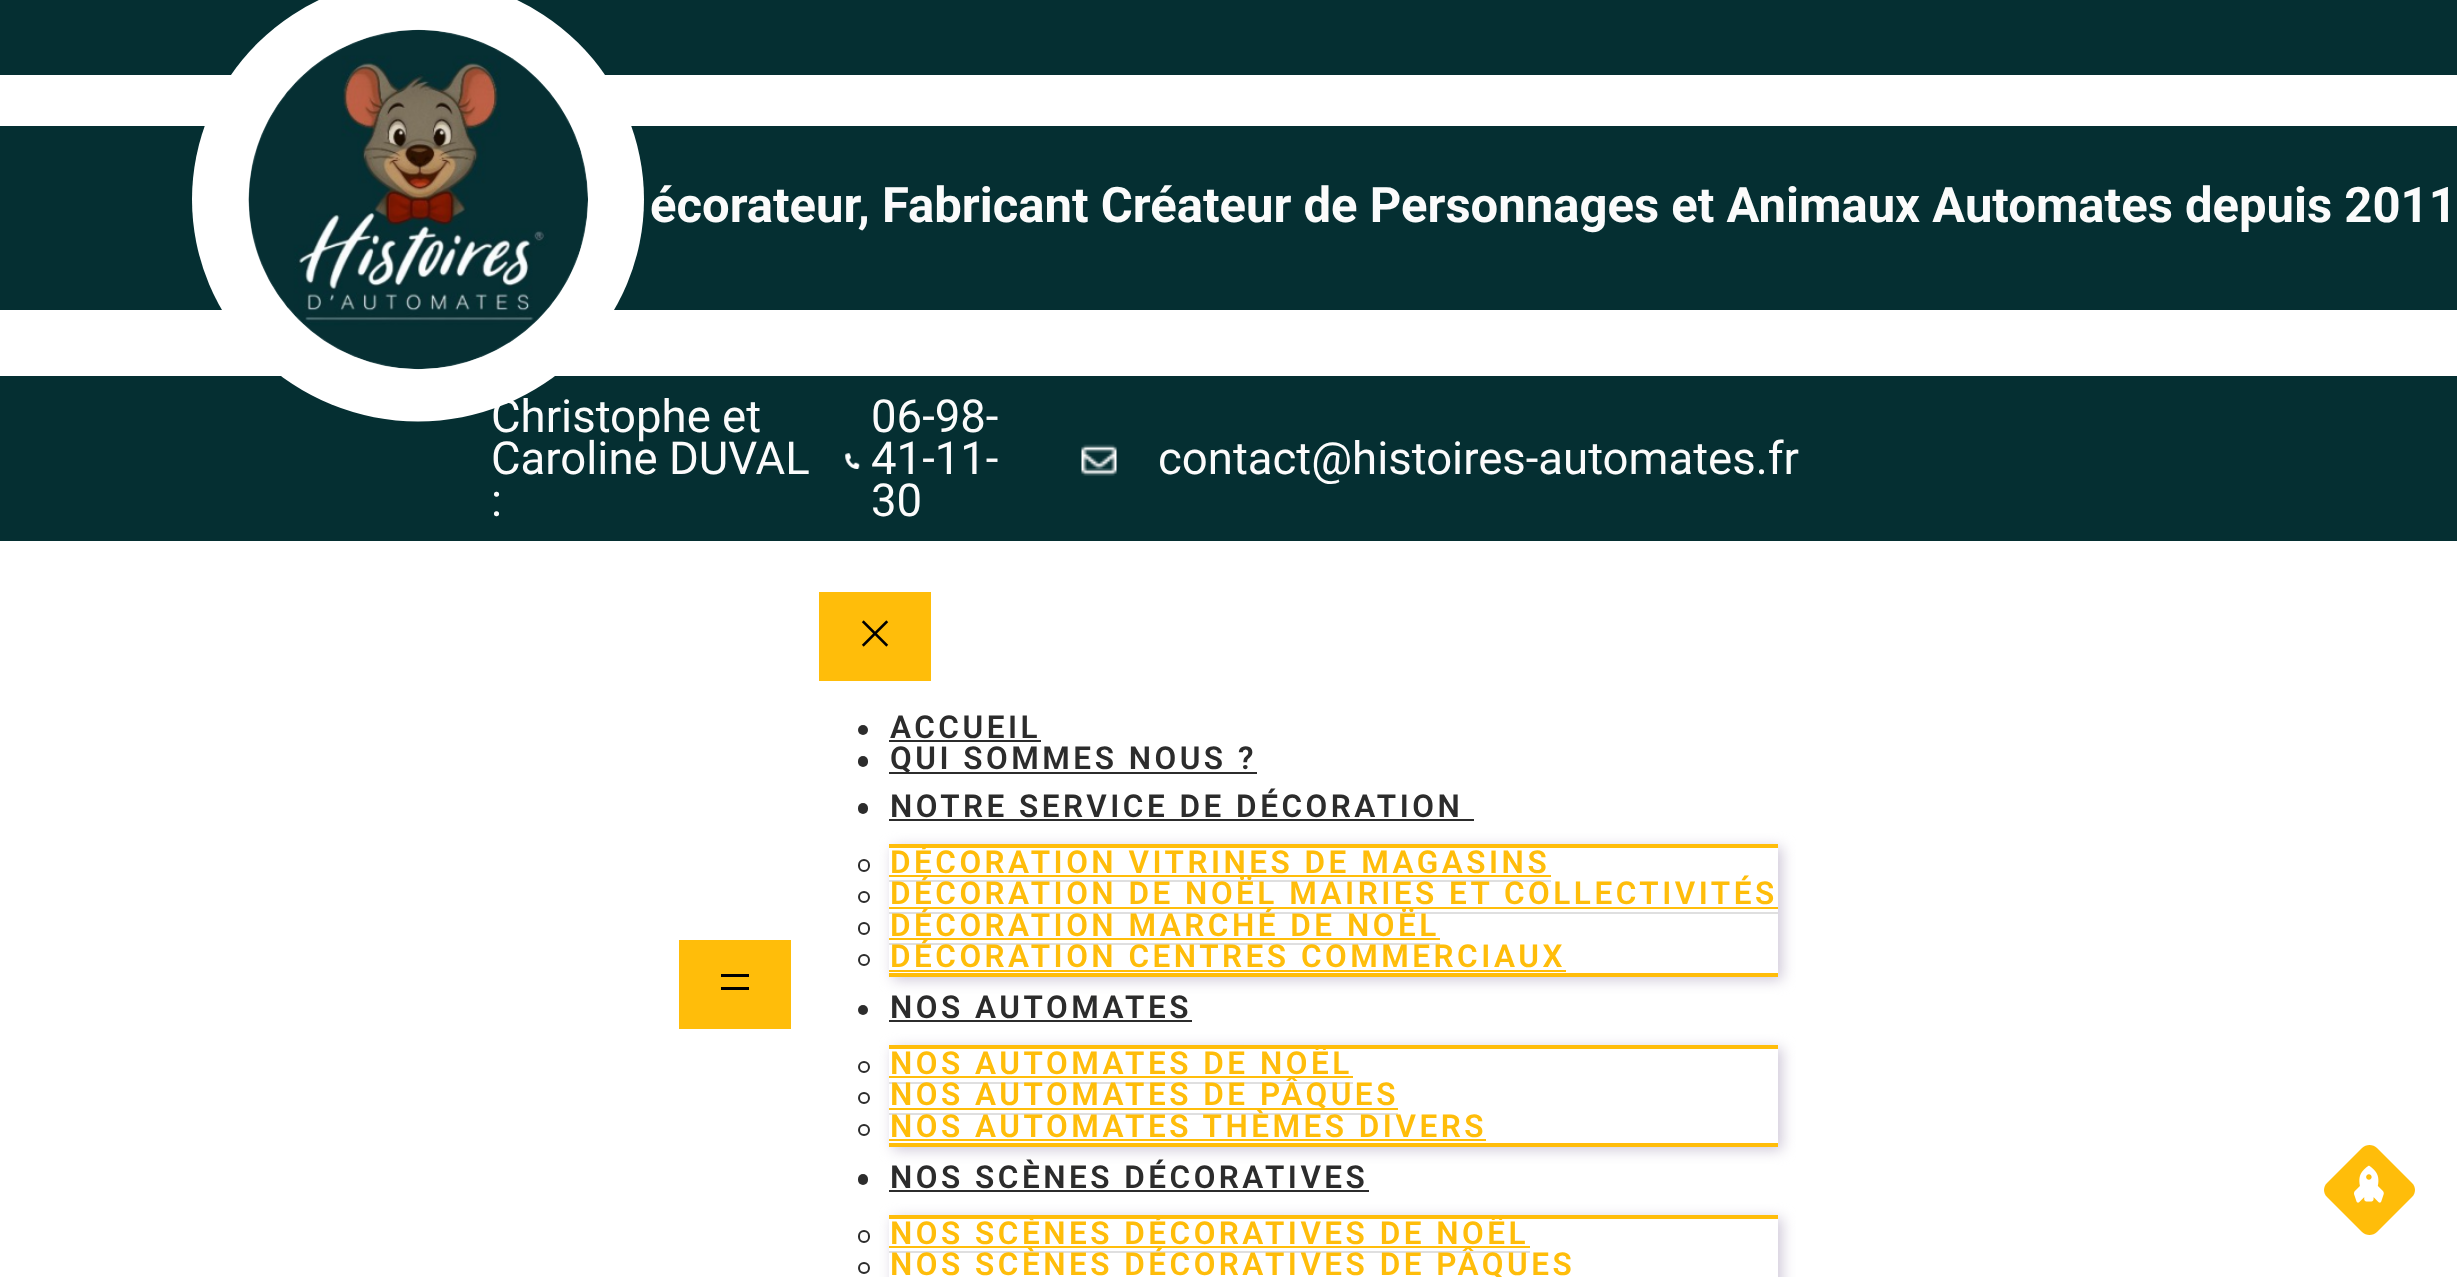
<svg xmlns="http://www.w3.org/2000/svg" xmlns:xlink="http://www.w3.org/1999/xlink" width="2457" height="1277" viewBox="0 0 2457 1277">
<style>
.cls-1{font:bold 49px Roboto;fill:#fbfbfb}
.cls-2{font:45.5px Roboto;fill:#fbfbfb}
.cls-3{font:600 31.5px Roboto;letter-spacing:3.5px;fill:#2c2c2c}
.cls-4{font:600 31.5px Roboto;letter-spacing:3.5px;fill:#ffbd0a}
</style>
<defs>
<clipPath id="clip1"><path d="M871 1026H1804V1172H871ZM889 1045H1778V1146H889Z" clip-rule="evenodd"/></clipPath>
<clipPath id="clip2"><path d="M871 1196H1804V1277H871ZM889 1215H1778V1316H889Z" clip-rule="evenodd"/></clipPath>
</defs>
<rect width="100%" height="100%" fill="#ffffff"/>
<rect fill="#052f32" x="0" y="0" width="2457" height="75"/>
<rect fill="#052f32" x="0" y="126" width="2457" height="184"/>
<rect fill="#052f32" x="0" y="376" width="2457" height="165"/>
<image xlink:href="image1.png" x="845" y="453" width="15" height="16"/>
<image xlink:href="image2.png" x="1081" y="444" width="36" height="32"/>
<rect fill="#ffbd0a" x="679" y="940" width="112" height="89"/>
<rect fill="#000000" x="721" y="974" width="28" height="3"/>
<rect fill="#000000" x="721" y="987" width="28" height="3"/>
<rect fill="#ffbd0a" x="819" y="592" width="112" height="89"/>
<image xlink:href="image3.png" x="861" y="620" width="28" height="27"/>
<circle fill="#2c2c2c" cx="863" cy="730" r="5"/>
<rect fill="#2c2c2c" x="889" y="740" width="152" height="2"/>
<rect fill="#2c2c2c" x="858" y="756" width="10" height="11" rx="5"/>
<rect fill="#2c2c2c" x="889" y="772" width="368" height="2"/>
<rect fill="#2c2c2c" x="858" y="803" width="10" height="11" rx="5"/>
<rect fill="#2c2c2c" x="889" y="819" width="585" height="2"/>
<rect fill="#cfc8d8" filter="blur(7px)" x="893" y="847" width="889" height="133"/>
<rect fill="#ffffff" x="889" y="848" width="889" height="125"/>
<rect fill="#ffbd0a" x="889" y="844" width="889" height="4"/>
<rect fill="#ffbd0a" x="889" y="973" width="889" height="4"/>
<rect fill="none" stroke="#2c2c2c" stroke-width="2" x="859" y="860" width="10" height="11" rx="5"/>
<rect fill="#dfdfdf" x="889" y="880" width="662" height="2"/>
<rect fill="#ffbd0a" x="889" y="875" width="662" height="2"/>
<circle fill="none" stroke="#2c2c2c" stroke-width="2" cx="864" cy="897" r="5"/>
<rect fill="#dfdfdf" x="889" y="912" width="889" height="2"/>
<rect fill="#ffbd0a" x="889" y="907" width="889" height="2"/>
<rect fill="none" stroke="#2c2c2c" stroke-width="2" x="859" y="923" width="10" height="11" rx="5"/>
<rect fill="#dfdfdf" x="889" y="943" width="551" height="2"/>
<rect fill="#ffbd0a" x="889" y="938" width="551" height="2"/>
<circle fill="none" stroke="#2c2c2c" stroke-width="2" cx="864" cy="960" r="5"/>
<rect fill="#ffbd0a" x="889" y="970" width="677" height="2"/>
<circle fill="#2c2c2c" cx="863" cy="1010" r="5"/>
<rect fill="#2c2c2c" x="889" y="1020" width="303" height="2"/>
<g clip-path="url(#clip1)">
<rect fill="#cfc8d8" filter="blur(7px)" x="893" y="1048" width="889" height="102"/>
</g>
<rect fill="#ffbd0a" x="889" y="1045" width="889" height="4"/>
<rect fill="#ffbd0a" x="889" y="1143" width="889" height="4"/>
<circle fill="none" stroke="#2c2c2c" stroke-width="2" cx="864" cy="1067" r="5"/>
<rect fill="#dfdfdf" x="889" y="1082" width="464" height="2"/>
<rect fill="#ffbd0a" x="889" y="1076" width="464" height="2"/>
<circle fill="none" stroke="#2c2c2c" stroke-width="2" cx="864" cy="1098" r="5"/>
<rect fill="#dfdfdf" x="889" y="1113" width="509" height="2"/>
<rect fill="#ffbd0a" x="889" y="1108" width="509" height="2"/>
<circle fill="none" stroke="#2c2c2c" stroke-width="2" cx="864" cy="1130" r="5"/>
<rect fill="#ffbd0a" x="889" y="1139" width="597" height="2"/>
<rect fill="#2c2c2c" x="858" y="1174" width="10" height="11" rx="5"/>
<rect fill="#2c2c2c" x="889" y="1190" width="480" height="2"/>
<g clip-path="url(#clip2)">
<rect fill="#cfc8d8" filter="blur(7px)" x="893" y="1218" width="889" height="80"/>
</g>
<rect fill="#ffbd0a" x="889" y="1215" width="889" height="4"/>
<rect fill="none" stroke="#2c2c2c" stroke-width="2" x="859" y="1231" width="10" height="11" rx="5"/>
<rect fill="#dfdfdf" x="889" y="1251" width="641" height="2"/>
<rect fill="#ffbd0a" x="889" y="1246" width="641" height="2"/>
<circle fill="none" stroke="#2c2c2c" stroke-width="2" cx="864" cy="1268" r="5"/>
<path fill="#ffbd0a" d="M2327 1183L2362 1148C2366 1144 2373 1144 2377 1148L2412 1183C2416 1187 2416 1193 2412 1197L2377 1232C2373 1236 2366 1236 2362 1232L2327 1197C2323 1193 2323 1187 2327 1183Z"/>
<image xlink:href="image4.png" x="2354" y="1165" width="30" height="38"/>
<text class="cls-1" x="650" y="222">écorateur, Fabricant Créateur de Personnages et Animaux Automates depuis 2011</text>
<text class="cls-2" x="491" y="432">Christophe et</text>
<ellipse fill="#ffffff" cx="418" cy="199.5" rx="226" ry="222"/>
<image xlink:href="image0.png" x="248" y="29" width="340" height="341"/>
<text class="cls-2"><tspan x="491" y="474">Caroline DUVAL</tspan><tspan x="491" y="516">:</tspan></text>
<text class="cls-2"><tspan x="871" y="432">06-98-</tspan><tspan x="871" y="474">41-11-</tspan><tspan x="871" y="516">30</tspan></text>
<text class="cls-2" x="1158" y="474">contact@histoires-automates.fr</text>
<text class="cls-3"><tspan x="890" y="738">ACCUEIL</tspan><tspan x="890" y="769">QUI SOMMES NOUS ?</tspan><tspan x="890" y="817">NOTRE SERVICE DE DÉCORATION</tspan></text>
<text class="cls-4"><tspan x="890" y="873">DÉCORATION VITRINES DE MAGASINS</tspan><tspan x="890" y="904">DÉCORATION DE NOËL MAIRIES ET COLLECTIVITÉS</tspan><tspan x="890" y="936">DÉCORATION MARCHÉ DE NOËL</tspan><tspan x="890" y="967">DÉCORATION CENTRES COMMERCIAUX</tspan></text>
<text class="cls-3" x="890" y="1018">NOS AUTOMATES</text>
<text class="cls-4"><tspan x="890" y="1074">NOS AUTOMATES DE NOËL</tspan><tspan x="890" y="1105">NOS AUTOMATES DE PÂQUES</tspan><tspan x="890" y="1137">NOS AUTOMATES THÈMES DIVERS</tspan></text>
<text class="cls-3" x="890" y="1188">NOS SCÈNES DÉCORATIVES</text>
<text class="cls-4"><tspan x="890" y="1244">NOS SCÈNES DÉCORATIVES DE NOËL</tspan><tspan x="890" y="1275">NOS SCÈNES DÉCORATIVES DE PÂQUES</tspan></text>
</svg>
